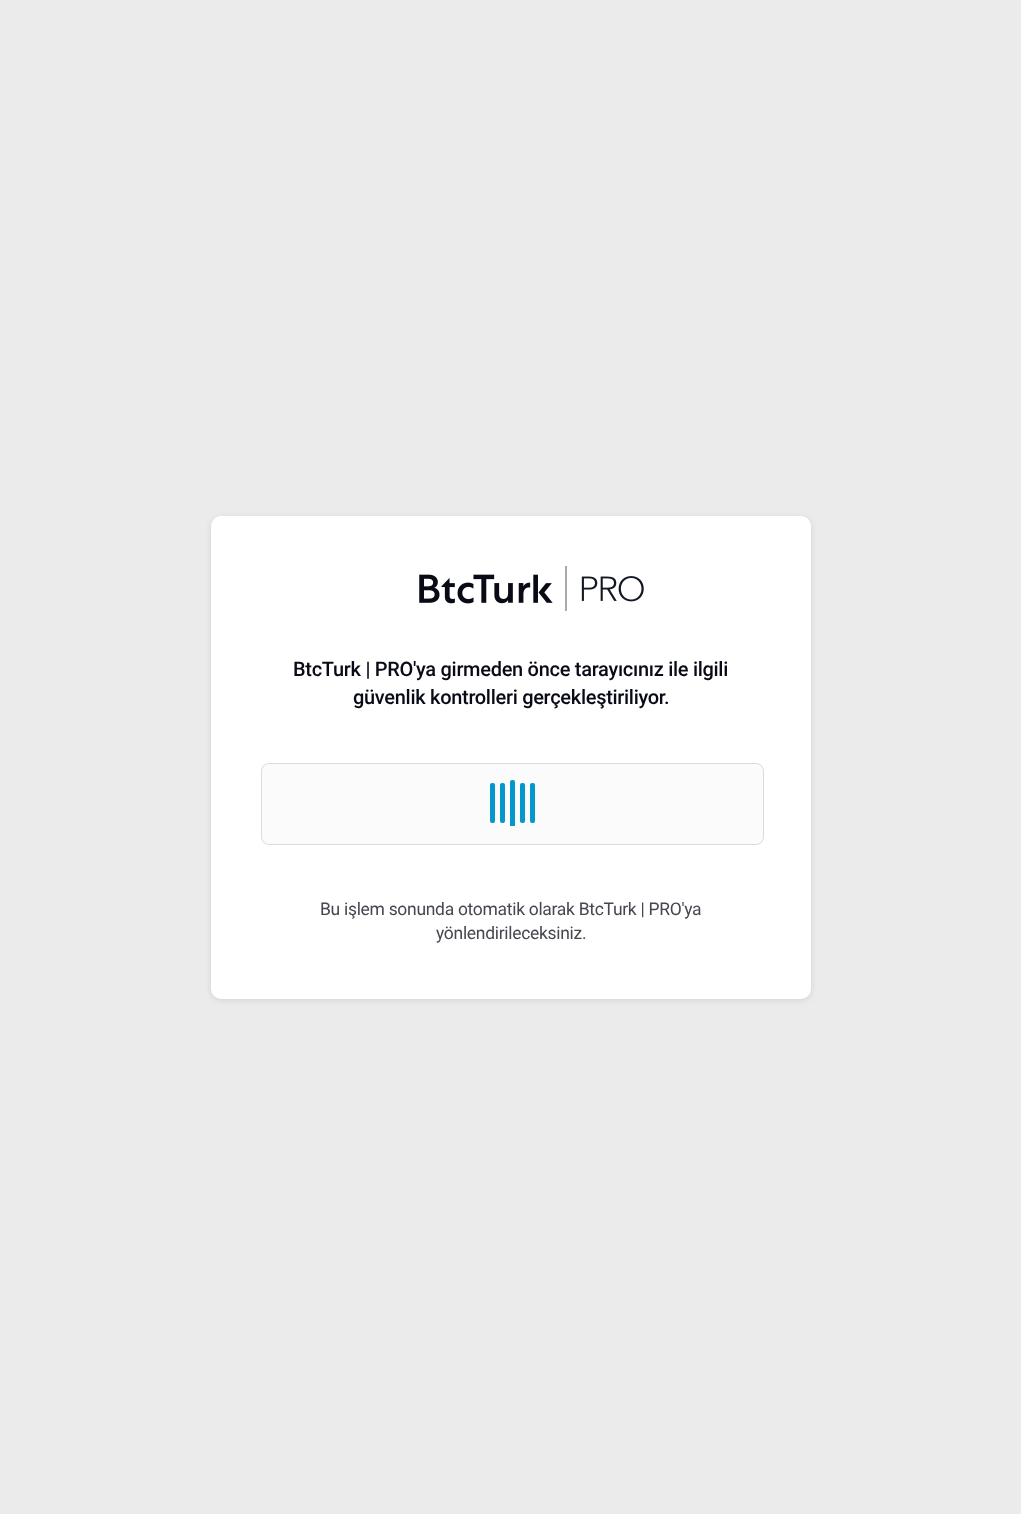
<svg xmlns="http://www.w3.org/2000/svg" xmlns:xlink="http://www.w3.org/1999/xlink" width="1021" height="1514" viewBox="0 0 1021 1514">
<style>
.cls-1{font:500 20px Roboto;letter-spacing:-0.3px;fill:#080a16}
.cls-2{font:17.5px Roboto;letter-spacing:-0.3px;fill:#464750}
</style>
<defs>
<clipPath id="clip1"><rect x="490" y="780" width="45" height="46"/></clipPath>
</defs>
<rect width="100%" height="100%" fill="#ebebeb"/>
<rect fill="#000000" fill-opacity="0.1" filter="blur(3px)" x="211" y="518" width="600" height="482" rx="10"/>
<rect fill="#ffffff" x="211" y="516" width="600" height="483" rx="10"/>
<image xlink:href="image0.png" x="419" y="566" width="225" height="45"/>
<rect fill="#fbfbfb" x="261" y="763" width="503" height="82" rx="8"/>
<rect fill="#0497cb" x="490" y="783" width="5" height="40" rx="2"/>
<rect fill="#0497cb" x="500" y="783" width="5" height="40" rx="2"/>
<g clip-path="url(#clip1)">
<rect fill="#0497cb" x="510" y="780" width="5" height="47" rx="2"/>
</g>
<rect fill="#0497cb" x="520" y="783" width="5" height="40" rx="2"/>
<rect fill="#0497cb" x="530" y="783" width="5" height="40" rx="2"/>
<rect fill="none" stroke="#dbdbdb" x="261.5" y="763.5" width="502" height="81" rx="7.5"/>
<text class="cls-1" x="293" y="676">BtcTurk | PRO'ya girmeden önce tarayıcınız ile ilgili</text>
<text class="cls-1" x="353" y="704">güvenlik kontrolleri gerçekleştiriliyor.</text>
<text class="cls-2" x="320" y="915">Bu işlem sonunda otomatik olarak BtcTurk | PRO'ya</text>
<text class="cls-2" x="436" y="939">yönlendirileceksiniz.</text>
</svg>
